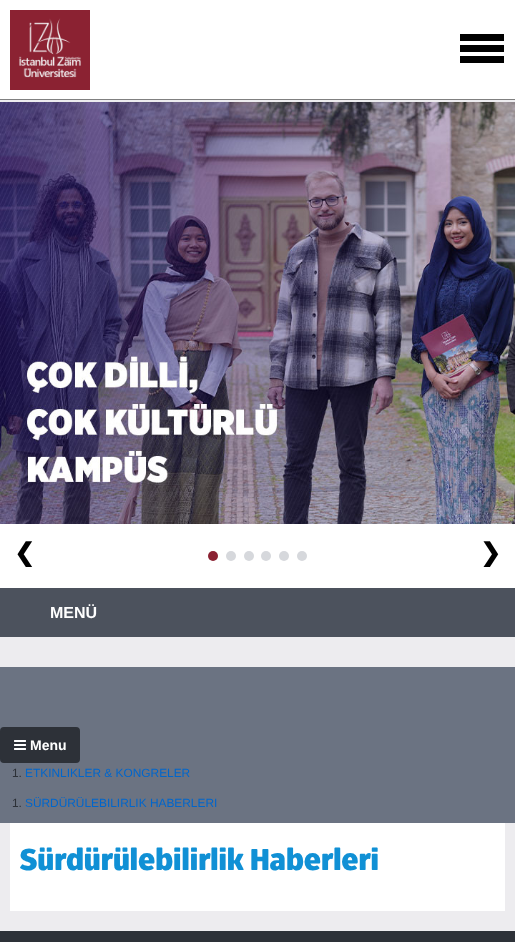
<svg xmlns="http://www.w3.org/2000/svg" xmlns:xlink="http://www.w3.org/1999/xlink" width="515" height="942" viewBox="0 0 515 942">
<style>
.cls-1{font:bold 25px DejaVu Sans;fill:#000000}
.cls-2{font:bold 16px Liberation Sans;fill:#ffffff}
.cls-3{font:bold 14px Liberation Sans;fill:#ffffff}
.cls-4{font:11.9px Liberation Sans;fill:#2d3138}
.cls-5{font:11.9px Liberation Sans;fill:#0066cc}
.cls-6{font:900 30px 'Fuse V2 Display';fill:#1090d5}
</style>
<rect width="100%" height="100%" fill="#edecef"/>
<rect fill="#ffffff" x="0" y="0" width="515" height="99"/>
<rect fill="#808080" x="0" y="99" width="515" height="1"/>
<image xlink:href="image0.png" x="10" y="10" width="80" height="80"/>
<rect fill="#000000" x="460" y="56" width="44" height="7"/>
<rect fill="#000000" x="460" y="45" width="44" height="7"/>
<rect fill="#000000" x="460" y="34" width="44" height="7"/>
<image xlink:href="image1.png" x="0" y="102" width="515" height="422"/>
<rect fill="#ffffff" x="0" y="524" width="515" height="64"/>
<circle fill="#8b2232" cx="213" cy="556" r="5"/>
<circle fill="#d6d8dc" cx="231" cy="556" r="5"/>
<circle fill="#d6d8dc" cx="249" cy="556" r="5"/>
<circle fill="#d6d8dc" cx="266" cy="556" r="5"/>
<circle fill="#d6d8dc" cx="284" cy="556" r="5"/>
<circle fill="#d6d8dc" cx="302" cy="556" r="5"/>
<rect fill="#4c525d" x="0" y="588" width="515" height="49"/>
<rect fill="#6b7382" x="0" y="667" width="515" height="156"/>
<rect fill="#2d3138" stroke="#2d3138" stroke-width="2" x="1" y="728" width="78" height="34" rx="3"/>
<image xlink:href="image2.png" x="14" y="740" width="12" height="10"/>
<rect fill="#ffffff" x="10" y="823" width="495" height="88"/>
<rect fill="#2d3138" x="0" y="931" width="515" height="11"/>
<text class="cls-1" x="14" y="561">❮</text>
<text class="cls-1" x="480" y="561">❯</text>
<text class="cls-2" x="50" y="618">MENÜ</text>
<text class="cls-3" x="30" y="750">Menu</text>
<text class="cls-4" x="12" y="777">1.</text>
<text class="cls-5" x="25" y="777">ETKINLIKLER &amp; KONGRELER</text>
<text class="cls-4" x="12" y="807">1.</text>
<text class="cls-5" x="25" y="807">SÜRDÜRÜLEBILIRLIK HABERLERI</text>
<text class="cls-6" x="20" y="870">Sürdürülebilirlik Haberleri</text>
</svg>
